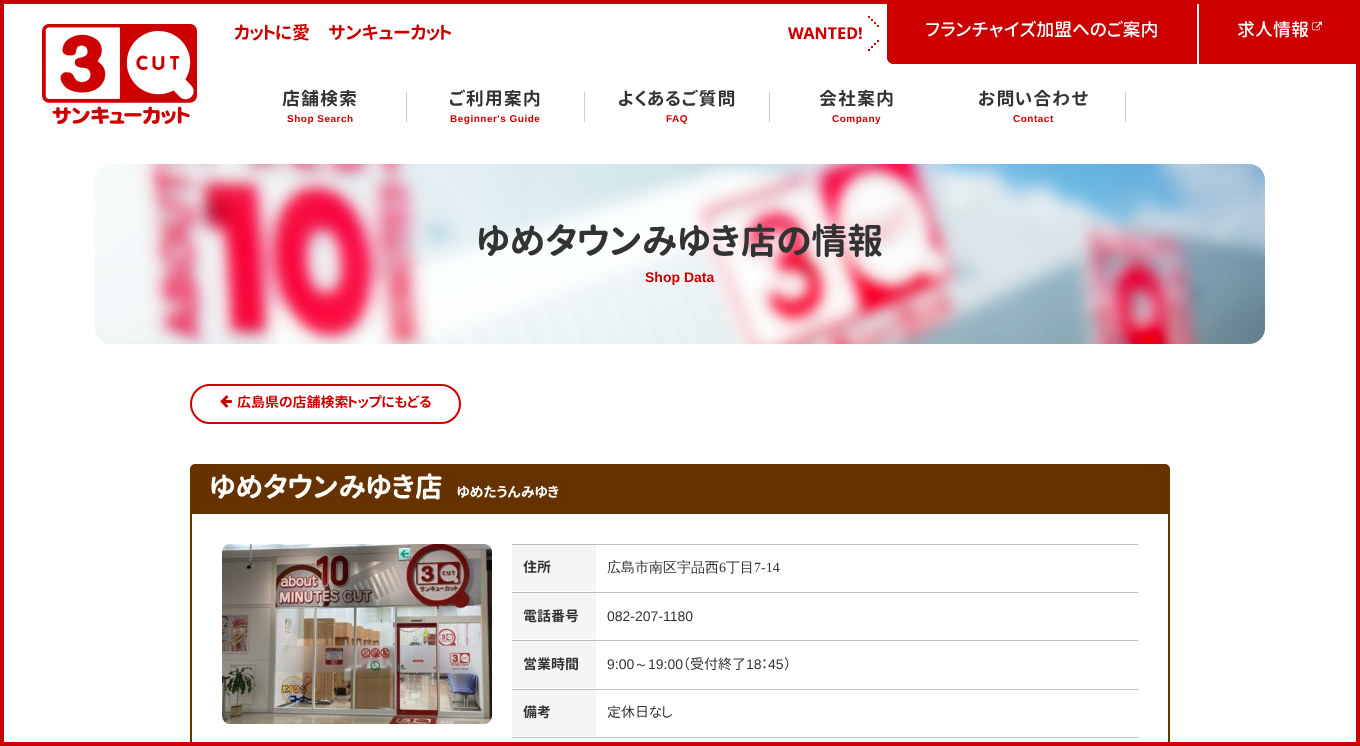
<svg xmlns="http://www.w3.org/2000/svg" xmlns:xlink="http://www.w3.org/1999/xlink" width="1360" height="746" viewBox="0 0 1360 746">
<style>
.cls-1{font:bold 18px 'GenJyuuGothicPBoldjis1';fill:#cc0000}
.cls-2{font:500 18px 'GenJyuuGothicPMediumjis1';fill:#ffffff}
.cls-3{font:bold 18px 'GenJyuuGothicPBoldjis1';letter-spacing:1px;fill:#333333}
.cls-4{font:bold 10px Liberation Sans;letter-spacing:0.5px;fill:#cc0000}
.cls-5{font:bold 36px 'GenJyuuGothicPBoldjis1';fill:#333333}
.cls-6{font:bold 14px Liberation Sans;fill:#cc0000}
.cls-7{font:bold 14px 'GenJyuuGothicPBoldjis1';fill:#cc0000}
.cls-8{font:bold 28px 'GenJyuuGothicPBoldjis1';fill:#ffffff}
.cls-9{font:bold 14px 'GenJyuuGothicPBoldjis1';fill:#ffffff}
.cls-10{font:bold 14px 'GenJyuuGothicPBoldjis1';fill:#333333}
.cls-11{font:500 14px WenQuanYi Zen Hei;fill:#333333}
.cls-12{font:14px Liberation Serif;fill:#333333}
.cls-13{font:14px Liberation Sans;fill:#333333}
.cls-14{font:14px 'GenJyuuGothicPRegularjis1';fill:#333333}
</style>
<rect width="100%" height="100%" fill="#ffffff"/>
<rect fill="#cc0000" x="0" y="0" width="1360" height="4"/>
<rect fill="none" stroke="#663300" stroke-width="2" x="191" y="465" width="978" height="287" rx="4"/>
<rect fill="#cc0000" x="0" y="742" width="1360" height="4"/>
<rect fill="#cc0000" x="0" y="0" width="4" height="746"/>
<image xlink:href="image0.png" x="42" y="24" width="155" height="100"/>
<image xlink:href="image1.png" x="788" y="27" width="74" height="13"/>
<image xlink:href="image2.png" x="868" y="16" width="11" height="35"/>
<path fill="#cc0000" d="M887 4H1197V64H894C890 64 887 61 887 57Z"/>
<path fill="#cc0000" fill-rule="evenodd" d="M887 4H1197V64H894C890 64 887 61 887 57ZM891 4H1193V60H894C892 60 891 59 891 57Z"/>
<rect fill="#cc0000" x="1199" y="4" width="157" height="60"/>
<image xlink:href="image3.png" x="1312" y="21" width="10" height="10"/>
<rect fill="#cccccc" x="406" y="92" width="1" height="30"/>
<rect fill="#cccccc" x="584" y="92" width="1" height="30"/>
<rect fill="#cccccc" x="769" y="92" width="1" height="30"/>
<rect fill="#cccccc" x="1125" y="92" width="1" height="30"/>
<image xlink:href="image4.png" x="95" y="164" width="1170" height="180"/>
<rect fill="none" stroke="#cc0000" stroke-width="2" x="191" y="385" width="269" height="38" rx="19"/>
<image xlink:href="image5.png" x="220" y="395" width="12" height="13"/>
<rect fill="#663300" x="192" y="466" width="976" height="48"/>
<image xlink:href="image6.png" x="222" y="544" width="270" height="180"/>
<rect fill="#bebebe" x="512" y="737" width="626" height="1"/>
<rect fill="#f5f5f5" x="512" y="545" width="84" height="46"/>
<rect fill="#bebebe" x="512" y="544" width="626" height="1"/>
<rect fill="#f5f5f5" x="512" y="593" width="84" height="46"/>
<rect fill="#bebebe" x="512" y="592" width="626" height="1"/>
<rect fill="#f5f5f5" x="512" y="641" width="84" height="47"/>
<rect fill="#bebebe" x="512" y="640" width="626" height="1"/>
<rect fill="#f5f5f5" x="512" y="690" width="84" height="46"/>
<rect fill="#bebebe" x="512" y="689" width="626" height="1"/>
<rect fill="#cc0000" x="1356" y="0" width="4" height="746"/>
<text class="cls-1" x="234" y="39">カットに愛</text>
<text class="cls-1" x="328" y="39">サンキューカット</text>
<text class="cls-2" x="925" y="36">フランチャイズ加盟へのご案内</text>
<text class="cls-2" x="1237" y="36">求人情報</text>
<text class="cls-3" x="282" y="105">店舗検索</text>
<text class="cls-4" x="287" y="122">Shop Search</text>
<text class="cls-3" x="449" y="105">ご利用案内</text>
<text class="cls-4" x="450" y="122">Beginner's Guide</text>
<text class="cls-3" x="618" y="105">よくあるご質問</text>
<text class="cls-4" x="666" y="122">FAQ</text>
<text class="cls-3" x="819" y="105">会社案内</text>
<text class="cls-4" x="832" y="122">Company</text>
<text class="cls-3" x="978" y="105">お問い合わせ</text>
<text class="cls-4" x="1013" y="122">Contact</text>
<text class="cls-5" x="477" y="254">ゆめタウンみゆき店の情報</text>
<text class="cls-6" x="645" y="282">Shop Data</text>
<text class="cls-7" x="237" y="407">広島県の店舗検索トップにもどる</text>
<text class="cls-8" x="210" y="497">ゆめタウンみゆき店</text>
<text class="cls-9" x="457" y="497">ゆめたうんみゆき</text>
<text class="cls-10" x="523" y="572">住所</text>
<text class="cls-11" x="607" y="572">広島市南区宇品西</text>
<text class="cls-12" x="719" y="572">6</text>
<text class="cls-11" x="726" y="572">丁目</text>
<text class="cls-12" x="754" y="572">7-14</text>
<text class="cls-10" x="523" y="621">電話番号</text>
<text class="cls-13" x="607" y="621">082-207-1180</text>
<text class="cls-10" x="523" y="669">営業時間</text>
<text class="cls-13" x="607" y="669">9:00</text>
<text class="cls-11" x="634" y="669">～</text>
<text class="cls-13" x="648" y="669">19:00</text>
<text class="cls-14" x="683" y="669">（受付終了</text>
<text class="cls-13" x="746" y="669">18</text>
<text class="cls-14" x="761" y="669">：</text>
<text class="cls-13" x="768" y="669">45</text>
<text class="cls-14" x="784" y="669">）</text>
<text class="cls-10" x="523" y="717">備考</text>
<text class="cls-14" x="607" y="717">定休日なし</text>
</svg>
